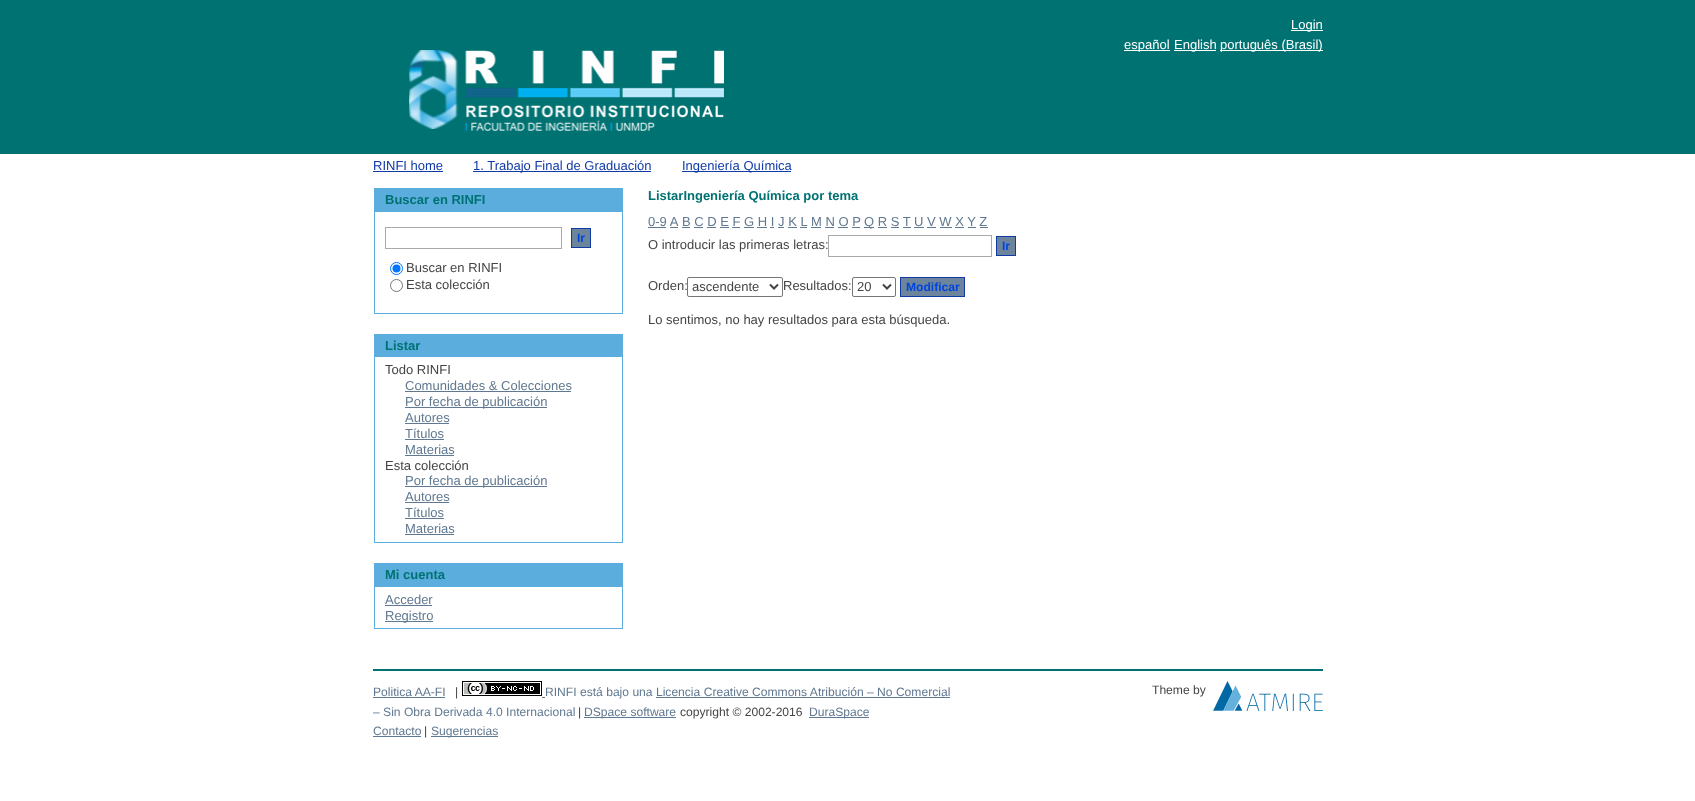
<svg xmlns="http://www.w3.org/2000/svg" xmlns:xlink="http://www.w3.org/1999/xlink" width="1695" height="801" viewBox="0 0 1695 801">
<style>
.cls-1{font:13px Liberation Sans;fill:#ffffff}
.cls-2{font:13px Liberation Sans;fill:#103aa6}
.cls-3{font:bold 13px Liberation Sans;fill:#007272}
.cls-4{font:bold 12.1px Liberation Sans;fill:#0045db}
.cls-5{font:13px Liberation Sans;fill:#444444}
.cls-6{font:13px Liberation Sans;fill:#607890}
.cls-7{font:12.1px Liberation Sans;fill:#607890}
.cls-8{font:12.1px Liberation Sans;fill:#444444}
</style>
<rect width="100%" height="100%" fill="#ffffff"/>
<rect fill="#007272" x="0" y="0" width="1695" height="154"/>
<rect fill="#ffffff" x="1291" y="30" width="32" height="1"/>
<rect fill="#ffffff" x="1124" y="50" width="46" height="1"/>
<rect fill="#ffffff" x="1174" y="50" width="42" height="1"/>
<rect fill="#ffffff" x="1220" y="50" width="103" height="1"/>
<image xlink:href="image0.png" x="409" y="50" width="315" height="81"/>
<rect fill="#103aa6" x="373" y="171" width="70" height="1"/>
<rect fill="#103aa6" x="473" y="171" width="178" height="1"/>
<rect fill="#103aa6" x="682" y="171" width="109" height="1"/>
<rect fill="#5aaddd" x="374" y="188" width="249" height="24"/>
<rect fill="#5aaddd" x="622" y="212" width="1" height="102"/>
<rect fill="#5aaddd" x="374" y="313" width="249" height="1"/>
<rect fill="#5aaddd" x="374" y="212" width="1" height="102"/>
<rect fill="none" stroke="#aaaaaa" x="385.5" y="227.5" width="176" height="21"/>
<rect fill="#6d859c" stroke="#103aa6" x="571.5" y="228.5" width="19" height="19"/>
<circle fill="none" stroke="#0075ff" cx="396.5" cy="268.5" r="6"/>
<circle fill="#0075ff" cx="396.5" cy="268.5" r="4"/>
<circle fill="none" stroke="#767676" cx="396.5" cy="285.5" r="6"/>
<rect fill="#5aaddd" x="374" y="334" width="249" height="23"/>
<rect fill="#5aaddd" x="622" y="357" width="1" height="186"/>
<rect fill="#5aaddd" x="374" y="542" width="249" height="1"/>
<rect fill="#5aaddd" x="374" y="357" width="1" height="186"/>
<rect fill="#607890" x="405" y="391" width="166" height="1"/>
<rect fill="#607890" x="405" y="407" width="142" height="1"/>
<rect fill="#607890" x="405" y="423" width="44" height="1"/>
<rect fill="#607890" x="405" y="439" width="39" height="1"/>
<rect fill="#607890" x="405" y="455" width="49" height="1"/>
<rect fill="#607890" x="405" y="486" width="142" height="1"/>
<rect fill="#607890" x="405" y="502" width="44" height="1"/>
<rect fill="#607890" x="405" y="518" width="39" height="1"/>
<rect fill="#607890" x="405" y="534" width="49" height="1"/>
<rect fill="#5aaddd" x="374" y="563" width="249" height="24"/>
<rect fill="#5aaddd" x="622" y="587" width="1" height="42"/>
<rect fill="#5aaddd" x="374" y="628" width="249" height="1"/>
<rect fill="#5aaddd" x="374" y="587" width="1" height="42"/>
<rect fill="#607890" x="385" y="605" width="47" height="1"/>
<rect fill="#607890" x="385" y="621" width="48" height="1"/>
<rect fill="#607890" x="648" y="227" width="18" height="1"/>
<rect fill="#607890" x="682" y="227" width="8" height="1"/>
<rect fill="#607890" x="811" y="227" width="10" height="1"/>
<rect fill="#607890" x="864" y="227" width="10" height="1"/>
<rect fill="#607890" x="670" y="227" width="8" height="1"/>
<rect fill="#607890" x="694" y="227" width="9" height="1"/>
<rect fill="#607890" x="707" y="227" width="9" height="1"/>
<rect fill="#607890" x="720" y="227" width="9" height="1"/>
<rect fill="#607890" x="732" y="227" width="8" height="1"/>
<rect fill="#607890" x="744" y="227" width="10" height="1"/>
<rect fill="#607890" x="757" y="227" width="10" height="1"/>
<rect fill="#607890" x="770" y="227" width="4" height="1"/>
<rect fill="#607890" x="778" y="227" width="6" height="1"/>
<rect fill="#607890" x="788" y="227" width="9" height="1"/>
<rect fill="#607890" x="800" y="227" width="7" height="1"/>
<rect fill="#607890" x="825" y="227" width="9" height="1"/>
<rect fill="#607890" x="838" y="227" width="10" height="1"/>
<rect fill="#607890" x="852" y="227" width="8" height="1"/>
<rect fill="#607890" x="878" y="227" width="9" height="1"/>
<rect fill="#607890" x="891" y="227" width="8" height="1"/>
<rect fill="#607890" x="903" y="227" width="8" height="1"/>
<rect fill="#607890" x="914" y="227" width="10" height="1"/>
<rect fill="#607890" x="927" y="227" width="9" height="1"/>
<rect fill="#607890" x="940" y="227" width="12" height="1"/>
<rect fill="#607890" x="955" y="227" width="9" height="1"/>
<rect fill="#607890" x="968" y="227" width="8" height="1"/>
<rect fill="#607890" x="980" y="227" width="8" height="1"/>
<rect fill="none" stroke="#aaaaaa" x="828.5" y="235.5" width="163" height="21"/>
<rect fill="#6d859c" stroke="#103aa6" x="996.5" y="236.5" width="19" height="19"/>
<rect fill="none" stroke="#767676" x="687.5" y="277.5" width="95" height="19" rx="1.5"/>
<path fill="none" stroke="#444444" stroke-width="2" d="M770 284.5L774 288.5L778 284.5"/>
<rect fill="none" stroke="#767676" x="852.5" y="277.5" width="43" height="19" rx="1.5"/>
<path fill="none" stroke="#444444" stroke-width="2" d="M883 284.5L887 288.5L891 284.5"/>
<rect fill="#6d859c" stroke="#103aa6" x="900.5" y="277.5" width="64" height="19"/>
<rect fill="#007272" x="373" y="669" width="950" height="2"/>
<rect fill="#607890" x="373" y="697" width="72" height="1"/>
<image xlink:href="image1.png" x="462" y="681" width="80" height="15"/>
<rect fill="#607890" x="542" y="697" width="3" height="1"/>
<rect fill="#607890" x="656" y="697" width="294" height="1"/>
<rect fill="#607890" x="584" y="717" width="92" height="1"/>
<rect fill="#607890" x="809" y="717" width="60" height="1"/>
<image xlink:href="image2.png" x="1213" y="681" width="110" height="30"/>
<rect fill="#607890" x="373" y="736" width="48" height="1"/>
<rect fill="#607890" x="431" y="736" width="67" height="1"/>
<text class="cls-1" x="1291" y="29">Login</text>
<text class="cls-1" x="1124" y="49">español</text>
<text class="cls-1" x="1174" y="49">English</text>
<text class="cls-1" x="1220" y="49">português (Brasil)</text>
<text class="cls-2" x="373" y="170">RINFI home</text>
<text class="cls-2" x="473" y="170">1. Trabajo Final de Graduación</text>
<text class="cls-2" x="682" y="170">Ingeniería Química</text>
<text class="cls-3" x="385" y="204">Buscar en RINFI</text>
<text class="cls-4" x="577" y="242">Ir</text>
<text class="cls-5"><tspan x="406" y="272">Buscar en RINFI</tspan><tspan x="406" y="289">Esta colección</tspan></text>
<text class="cls-3" x="385" y="350">Listar</text>
<text class="cls-5" x="385" y="374">Todo RINFI</text>
<text class="cls-6"><tspan x="405" y="390">Comunidades &amp; Colecciones</tspan><tspan x="405" y="406">Por fecha de publicación</tspan><tspan x="405" y="422">Autores</tspan><tspan x="405" y="438">Títulos</tspan><tspan x="405" y="454">Materias</tspan></text>
<text class="cls-5" x="385" y="470">Esta colección</text>
<text class="cls-6"><tspan x="405" y="485">Por fecha de publicación</tspan><tspan x="405" y="501">Autores</tspan><tspan x="405" y="517">Títulos</tspan><tspan x="405" y="533">Materias</tspan></text>
<text class="cls-3" x="385" y="579">Mi cuenta</text>
<text class="cls-6"><tspan x="385" y="604">Acceder</tspan><tspan x="385" y="620">Registro</tspan></text>
<text class="cls-3" x="648" y="200">ListarIngeniería Química por tema</text>
<text class="cls-6" x="648" y="226">0-9 A</text>
<text class="cls-6" x="682" y="226">B C D E F G H I J K L</text>
<text class="cls-6" x="811" y="226">M N O P</text>
<text class="cls-6" x="864" y="226">Q R S T U V W X Y Z</text>
<text class="cls-5" x="648" y="249">O introducir las primeras letras:</text>
<text class="cls-4" x="1002" y="250">Ir</text>
<text class="cls-5" x="648" y="290">Orden:</text>
<text class="cls-5" x="692" y="291">ascendente</text>
<text class="cls-5" x="783" y="290">Resultados:</text>
<text class="cls-5" x="857" y="291">20</text>
<text class="cls-4" x="906" y="291">Modificar</text>
<text class="cls-5" x="648" y="324">Lo sentimos, no hay resultados para esta búsqueda.</text>
<text class="cls-7" x="373" y="696">Politica AA-FI</text>
<text class="cls-8" x="455" y="696">|</text>
<text class="cls-7" x="545" y="696">RINFI está bajo una Licencia Creative Commons Atribución – No Comercial</text>
<text class="cls-7" x="373" y="716">– Sin Obra Derivada 4.0 Internacional</text>
<text class="cls-8" x="578" y="716">|</text>
<text class="cls-7" x="584" y="716">DSpace software</text>
<text class="cls-8" x="680" y="716">copyright © 2002-2016</text>
<text class="cls-7" x="809" y="716">DuraSpace</text>
<text class="cls-8" x="1152" y="694">Theme by</text>
<text class="cls-7" x="373" y="735">Contacto</text>
<text class="cls-8" x="424" y="735">|</text>
<text class="cls-7" x="431" y="735">Sugerencias</text>
</svg>
